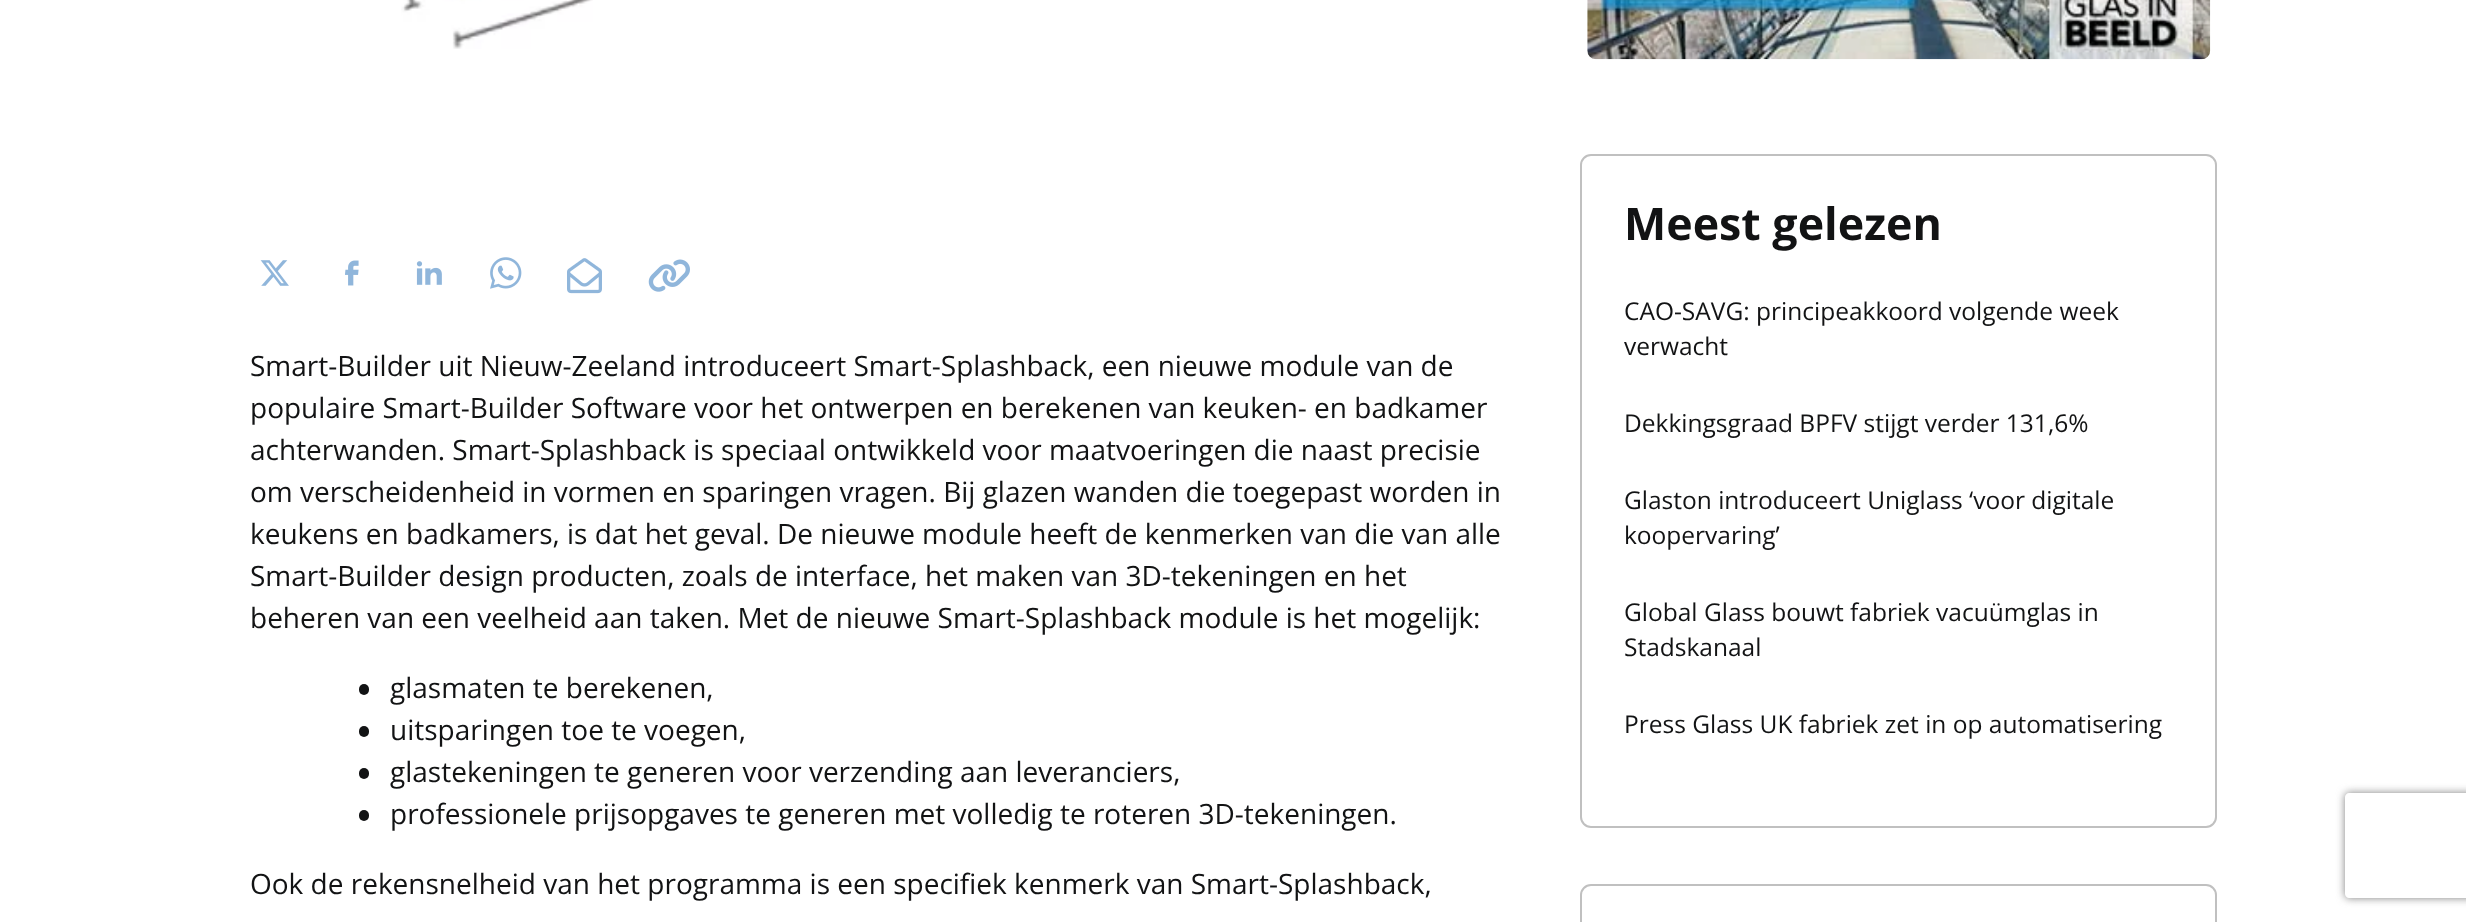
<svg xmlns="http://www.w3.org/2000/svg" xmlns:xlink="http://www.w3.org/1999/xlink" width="2466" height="922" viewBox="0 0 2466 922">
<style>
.cls-1{font:28px Open Sans;fill:#121314}
.cls-2{font:bold 44.75px Open Sans;fill:#121314}
.cls-3{font:24.5px Open Sans;fill:#121314}
</style>
<defs>
<clipPath id="clip1"><path d="M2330 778H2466V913H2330ZM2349 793H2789C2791 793 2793 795 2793 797V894C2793 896 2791 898 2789 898H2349C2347 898 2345 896 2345 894V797C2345 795 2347 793 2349 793Z" clip-rule="evenodd"/></clipPath>
</defs>
<rect width="100%" height="100%" fill="#ffffff"/>
<image xlink:href="image0.png" x="401" y="0" width="192" height="49"/>
<image xlink:href="image1.png" x="260" y="260" width="29" height="26"/>
<image xlink:href="image2.png" x="345" y="260" width="14" height="26"/>
<image xlink:href="image3.png" x="416" y="261" width="26" height="24"/>
<image xlink:href="image4.png" x="490" y="257" width="32" height="32"/>
<image xlink:href="image5.png" x="567" y="258" width="35" height="36"/>
<image xlink:href="image6.png" x="648" y="259" width="42" height="33"/>
<rect fill="#121314" x="359" y="684" width="10" height="11" rx="5"/>
<rect fill="#121314" x="359" y="726" width="10" height="11" rx="5"/>
<rect fill="#121314" x="359" y="768" width="10" height="11" rx="5"/>
<rect fill="#121314" x="359" y="810" width="10" height="11" rx="5"/>
<image xlink:href="image7.png" x="1587" y="0" width="624" height="60"/>
<rect fill="none" stroke="#c0c0c0" stroke-width="2" x="1581" y="155" width="635" height="672" rx="10"/>
<rect fill="none" stroke="#c0c0c0" stroke-width="2" x="1581" y="885" width="635" height="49" rx="10"/>
<g clip-path="url(#clip1)">
<rect fill="#808080" filter="blur(4.5px)" x="2345" y="793" width="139" height="105" rx="4"/>
</g>
<text class="cls-1"><tspan x="250" y="376">Smart-Builder uit Nieuw-Zeeland introduceert Smart-Splashback, een nieuwe module van de</tspan><tspan x="250" y="418">populaire Smart-Builder Software voor het ontwerpen en berekenen van keuken- en badkamer</tspan><tspan x="250" y="460">achterwanden. Smart-Splashback is speciaal ontwikkeld voor maatvoeringen die naast precisie</tspan><tspan x="250" y="502">om verscheidenheid in vormen en sparingen vragen. Bij glazen wanden die toegepast worden in</tspan><tspan x="250" y="544">keukens en badkamers, is dat het geval. De nieuwe module heeft de kenmerken van die van alle</tspan><tspan x="250" y="586">Smart-Builder design producten, zoals de interface, het maken van 3D-tekeningen en het</tspan><tspan x="250" y="628">beheren van een veelheid aan taken. Met de nieuwe Smart-Splashback module is het mogelijk:</tspan></text>
<text class="cls-1"><tspan x="390" y="698">glasmaten te berekenen,</tspan><tspan x="390" y="740">uitsparingen toe te voegen,</tspan><tspan x="390" y="782">glastekeningen te generen voor verzending aan leveranciers,</tspan><tspan x="390" y="824">professionele prijsopgaves te generen met volledig te roteren 3D-tekeningen.</tspan></text>
<text class="cls-1" x="250" y="894">Ook de rekensnelheid van het programma is een specifiek kenmerk van Smart-Splashback,</text>
<text class="cls-2" x="1624" y="240">Meest gelezen</text>
<text class="cls-3"><tspan x="1624" y="320">CAO-SAVG: principeakkoord volgende week</tspan><tspan x="1624" y="355">verwacht</tspan></text>
<text class="cls-3" x="1624" y="432">Dekkingsgraad BPFV stijgt verder 131,6%</text>
<text class="cls-3"><tspan x="1624" y="509">Glaston introduceert Uniglass ‘voor digitale</tspan><tspan x="1624" y="544">koopervaring’</tspan></text>
<text class="cls-3"><tspan x="1624" y="621">Global Glass bouwt fabriek vacuümglas in</tspan><tspan x="1624" y="656">Stadskanaal</tspan></text>
<text class="cls-3" x="1624" y="733">Press Glass UK fabriek zet in op automatisering</text>
</svg>
